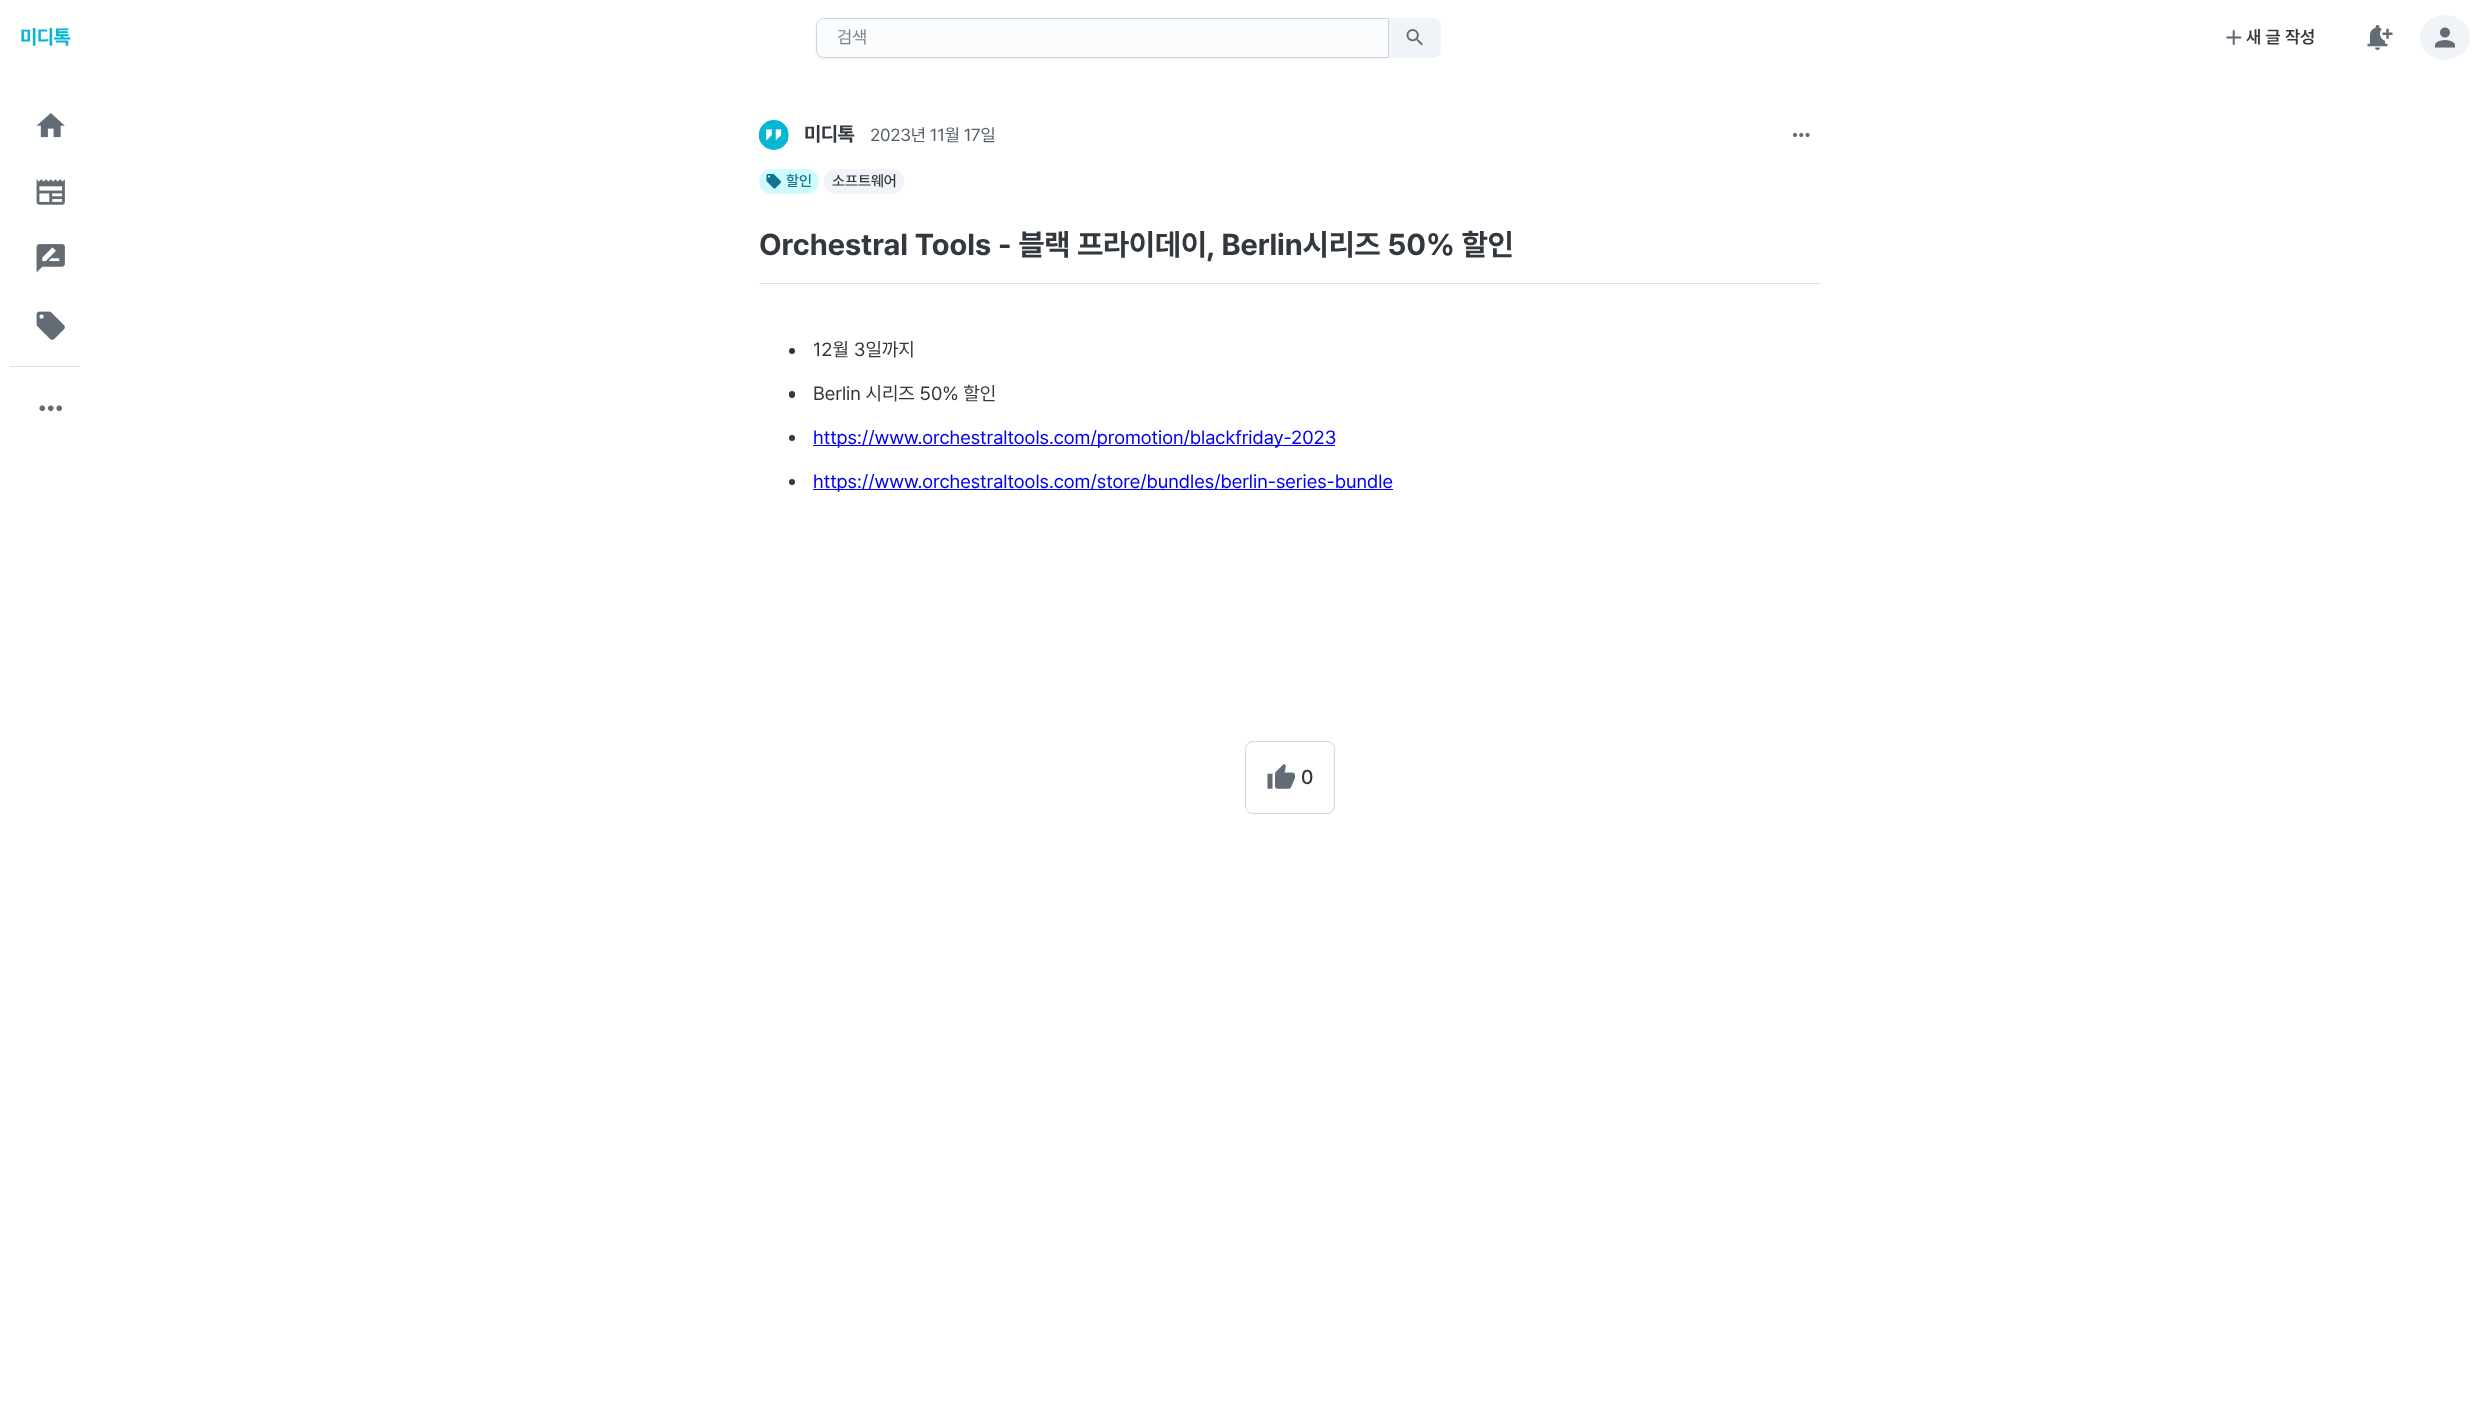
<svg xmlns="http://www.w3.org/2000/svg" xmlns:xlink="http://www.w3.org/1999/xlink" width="2489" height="1421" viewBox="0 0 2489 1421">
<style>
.cls-1{font:bold 20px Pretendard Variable;letter-spacing:-0.5px;fill:#06b6d4}
.cls-2{font:17.5px Pretendard Variable;fill:#7a7f83}
.cls-3{font:600 17.5px Pretendard Variable;fill:#32383e}
.cls-4{font:bold 20px Pretendard Variable;letter-spacing:-0.5px;fill:#32383e}
.cls-5{font:17.5px Pretendard Variable;letter-spacing:-0.25px;fill:#555e68}
.cls-6{font:500 15px Pretendard Variable;fill:#0e7490}
.cls-7{font:500 15px Pretendard Variable;fill:#32383e}
.cls-8{font:bold 30px Pretendard Variable;fill:#32383e}
.cls-9{font:19px Pretendard Variable;fill:#32383e}
.cls-10{font:19px Pretendard Variable;fill:#0000ee}
.cls-11{font:500 20px Pretendard Variable;fill:#32383e}
</style>
<rect width="100%" height="100%" fill="#ffffff"/>
<rect fill="#151515" fill-opacity="0.08" filter="blur(1px)" x="816" y="19" width="573" height="40" rx="8"/>
<path fill="#fbfcfe" stroke="#cdd7e1" d="M824 18.5H1388.5V57.5H824C820 57.5 816.5 54 816.5 50V26C816.5 22 820 18.5 824 18.5Z"/>
<path fill="#f0f4f8" d="M1389 18H1433C1437.5 18 1441 21.5 1441 26V50C1441 54.5 1437.5 58 1433 58H1389Z"/>
<image xlink:href="image0.png" x="1406" y="29" width="17" height="17"/>
<image xlink:href="image1.png" x="2226" y="30" width="16" height="15"/>
<image xlink:href="image2.png" x="2367" y="25" width="26" height="25"/>
<ellipse fill="#f0f4f8" cx="2445" cy="37.5" rx="25" ry="22.5"/>
<image xlink:href="image3.png" x="2435" y="27" width="20" height="21"/>
<image xlink:href="image4.png" x="36" y="113" width="29" height="25"/>
<image xlink:href="image5.png" x="36" y="179" width="29" height="26"/>
<image xlink:href="image6.png" x="36" y="244" width="29" height="29"/>
<image xlink:href="image7.png" x="36" y="311" width="29" height="29"/>
<rect fill="#e0e1e3" x="10" y="366" width="70" height="1"/>
<image xlink:href="image8.png" x="39" y="405" width="23" height="7"/>
<circle fill="#f0f4f8" cx="774" cy="135" r="15"/>
<image xlink:href="image9.png" x="759" y="120" width="30" height="30"/>
<image xlink:href="image10.png" x="1793" y="132" width="17" height="6"/>
<rect fill="#cffafe" x="759" y="169" width="60" height="25" rx="12.5"/>
<image xlink:href="image11.png" x="766" y="173" width="15" height="16"/>
<rect fill="#f0f4f8" x="824" y="169" width="80" height="25" rx="12.5"/>
<rect fill="#e0e1e3" x="759" y="283" width="1062" height="1"/>
<circle fill="#32383e" cx="792" cy="351" r="3"/>
<rect fill="#32383e" x="789" y="391" width="6" height="7" rx="3"/>
<circle fill="#32383e" cx="792" cy="438" r="3"/>
<rect fill="#0000ee" x="813" y="445" width="522" height="1"/>
<circle fill="#32383e" cx="792" cy="482" r="3"/>
<rect fill="#0000ee" x="813" y="489" width="580" height="1"/>
<rect fill="none" stroke="#cdd7e1" x="1245.5" y="741.5" width="89" height="72" rx="7.5"/>
<image xlink:href="image12.png" x="1267" y="763" width="28" height="26"/>
<text class="cls-1" x="20" y="44">미디톡</text>
<text class="cls-2" x="837" y="43">검색</text>
<text class="cls-3" x="2246" y="43">새 글 작성</text>
<text class="cls-4" x="804" y="141">미디톡</text>
<text class="cls-5" x="870" y="141">2023년 11월 17일</text>
<text class="cls-6" x="786" y="186">할인</text>
<text class="cls-7" x="832" y="186">소프트웨어</text>
<text class="cls-8" x="759" y="255">Orchestral Tools - 블랙 프라이데이, Berlin시리즈 50% 할인</text>
<text class="cls-9" x="813" y="356">12월 3일까지</text>
<text class="cls-9" x="813" y="400">Berlin 시리즈 50% 할인</text>
<text class="cls-10" x="813" y="444">https://www.orchestraltools.com/promotion/blackfriday-2023</text>
<text class="cls-10" x="813" y="488">https://www.orchestraltools.com/store/bundles/berlin-series-bundle</text>
<text class="cls-11" x="1301" y="784">0</text>
</svg>
